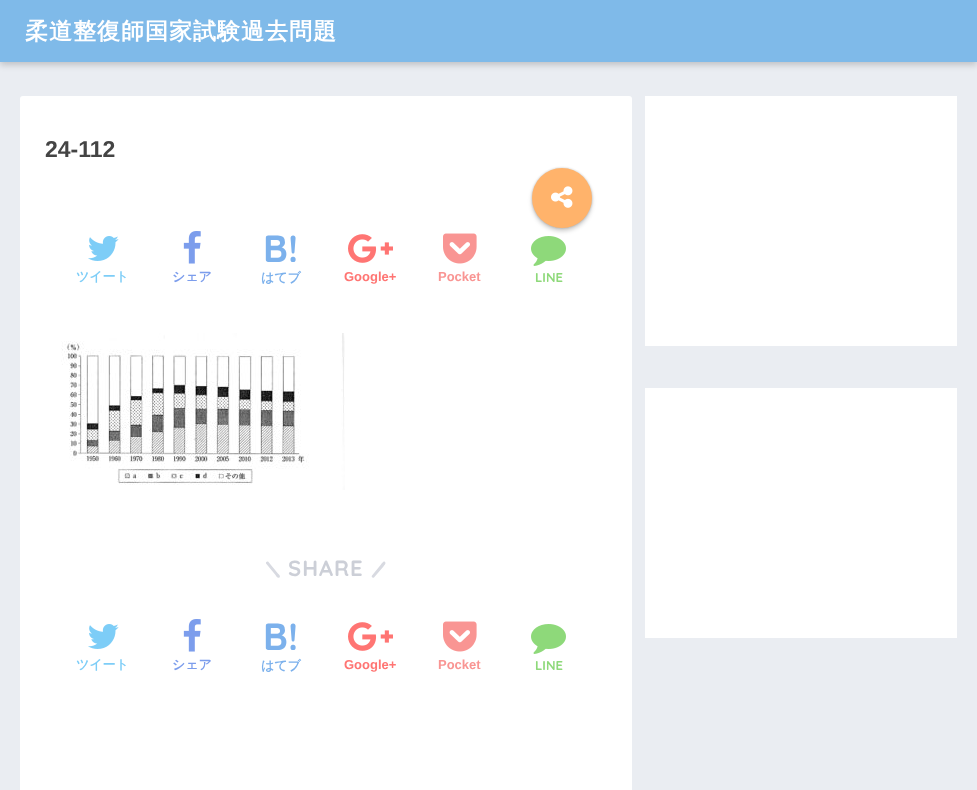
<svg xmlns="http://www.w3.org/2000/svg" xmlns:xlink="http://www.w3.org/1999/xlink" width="977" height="790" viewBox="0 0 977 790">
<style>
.cls-1{font:bold 23px WenQuanYi Zen Hei;letter-spacing:1px;fill:#ffffff}
.cls-2{font:bold 23px Liberation Sans;fill:#444444}
.cls-3{font:bold 13px WenQuanYi Zen Hei;fill:#7dcdf7}
.cls-4{font:bold 13px WenQuanYi Zen Hei;fill:#7c9dec}
.cls-5{font:bold 38px Quicksand;fill:#7cb1ec}
.cls-6{font:bold 13px WenQuanYi Zen Hei;fill:#7cb1ec}
.cls-7{font:bold 13px Liberation Sans;fill:#ff7573}
.cls-8{font:bold 13px Liberation Sans;fill:#f99593}
.cls-9{font:bold 13px Quicksand;fill:#8ed97a}
.cls-10{font:bold 22px Quicksand;letter-spacing:1px;fill:#cccfd7}
</style>
<rect width="100%" height="100%" fill="#eaedf2"/>
<rect fill="#000000" fill-opacity="0.18" filter="blur(3px)" x="0" y="3" width="977" height="62"/>
<rect fill="#7fbae9" x="0" y="0" width="977" height="62"/>
<rect fill="#ffffff" x="20" y="96" width="612" height="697" rx="3"/>
<rect fill="#000000" fill-opacity="0.2" filter="blur(1px)" x="532" y="168" width="60" height="60" rx="30"/>
<image xlink:href="image5.png" x="531" y="236" width="35" height="30"/>
<rect fill="#000000" fill-opacity="0.2" filter="blur(2px)" x="532" y="171" width="60" height="60" rx="30"/>
<circle fill="#ffb36b" cx="562" cy="198" r="30"/>
<image xlink:href="image0.png" x="551" y="186" width="22" height="22"/>
<image xlink:href="image1.png" x="88" y="236" width="31" height="25"/>
<image xlink:href="image2.png" x="183" y="231" width="18" height="33"/>
<image xlink:href="image3.png" x="348" y="234" width="45" height="29"/>
<image xlink:href="image4.png" x="443" y="233" width="34" height="31"/>
<image xlink:href="image6.png" x="61" y="333" width="284" height="157"/>
<path fill="#d8dae1" d="M268.5 562L277.5 573C278.5 574 281 576 279.5 577.5C277.5 578.5 276 576 275.5 575L266 563.5C265.5 562 267.5 561 268.5 562Z"/>
<path fill="#d8dae1" d="M372 575.5L381 564.5C382 563.5 383.5 560.5 385 562C386.5 563.5 384 565.5 383.5 566.5L374 577.5C372.5 578.5 371 576.5 372 575.5Z"/>
<image xlink:href="image1.png" x="88" y="624" width="31" height="25"/>
<image xlink:href="image2.png" x="183" y="619" width="18" height="33"/>
<image xlink:href="image3.png" x="348" y="622" width="45" height="29"/>
<image xlink:href="image4.png" x="443" y="621" width="34" height="31"/>
<image xlink:href="image5.png" x="531" y="624" width="35" height="30"/>
<rect fill="#ffffff" x="645" y="96" width="312" height="250"/>
<rect fill="#ffffff" x="645" y="388" width="312" height="250"/>
<text class="cls-1" x="25" y="39">柔道整復師国家試験過去問題</text>
<text class="cls-2" x="45" y="157">24-112</text>
<text class="cls-3" x="76" y="281">ツイート</text>
<text class="cls-4" x="172" y="281">シェア</text>
<text class="cls-5" x="263" y="262">B!</text>
<text class="cls-6" x="261" y="282">はてブ</text>
<text class="cls-7" x="344" y="281">Google+</text>
<text class="cls-8" x="438" y="281">Pocket</text>
<text class="cls-9" x="535" y="282">LINE</text>
<text class="cls-10" x="288" y="576">SHARE</text>
<text class="cls-3" x="76" y="669">ツイート</text>
<text class="cls-4" x="172" y="669">シェア</text>
<text class="cls-5" x="263" y="650">B!</text>
<text class="cls-6" x="261" y="670">はてブ</text>
<text class="cls-7" x="344" y="669">Google+</text>
<text class="cls-8" x="438" y="669">Pocket</text>
<text class="cls-9" x="535" y="670">LINE</text>
</svg>
